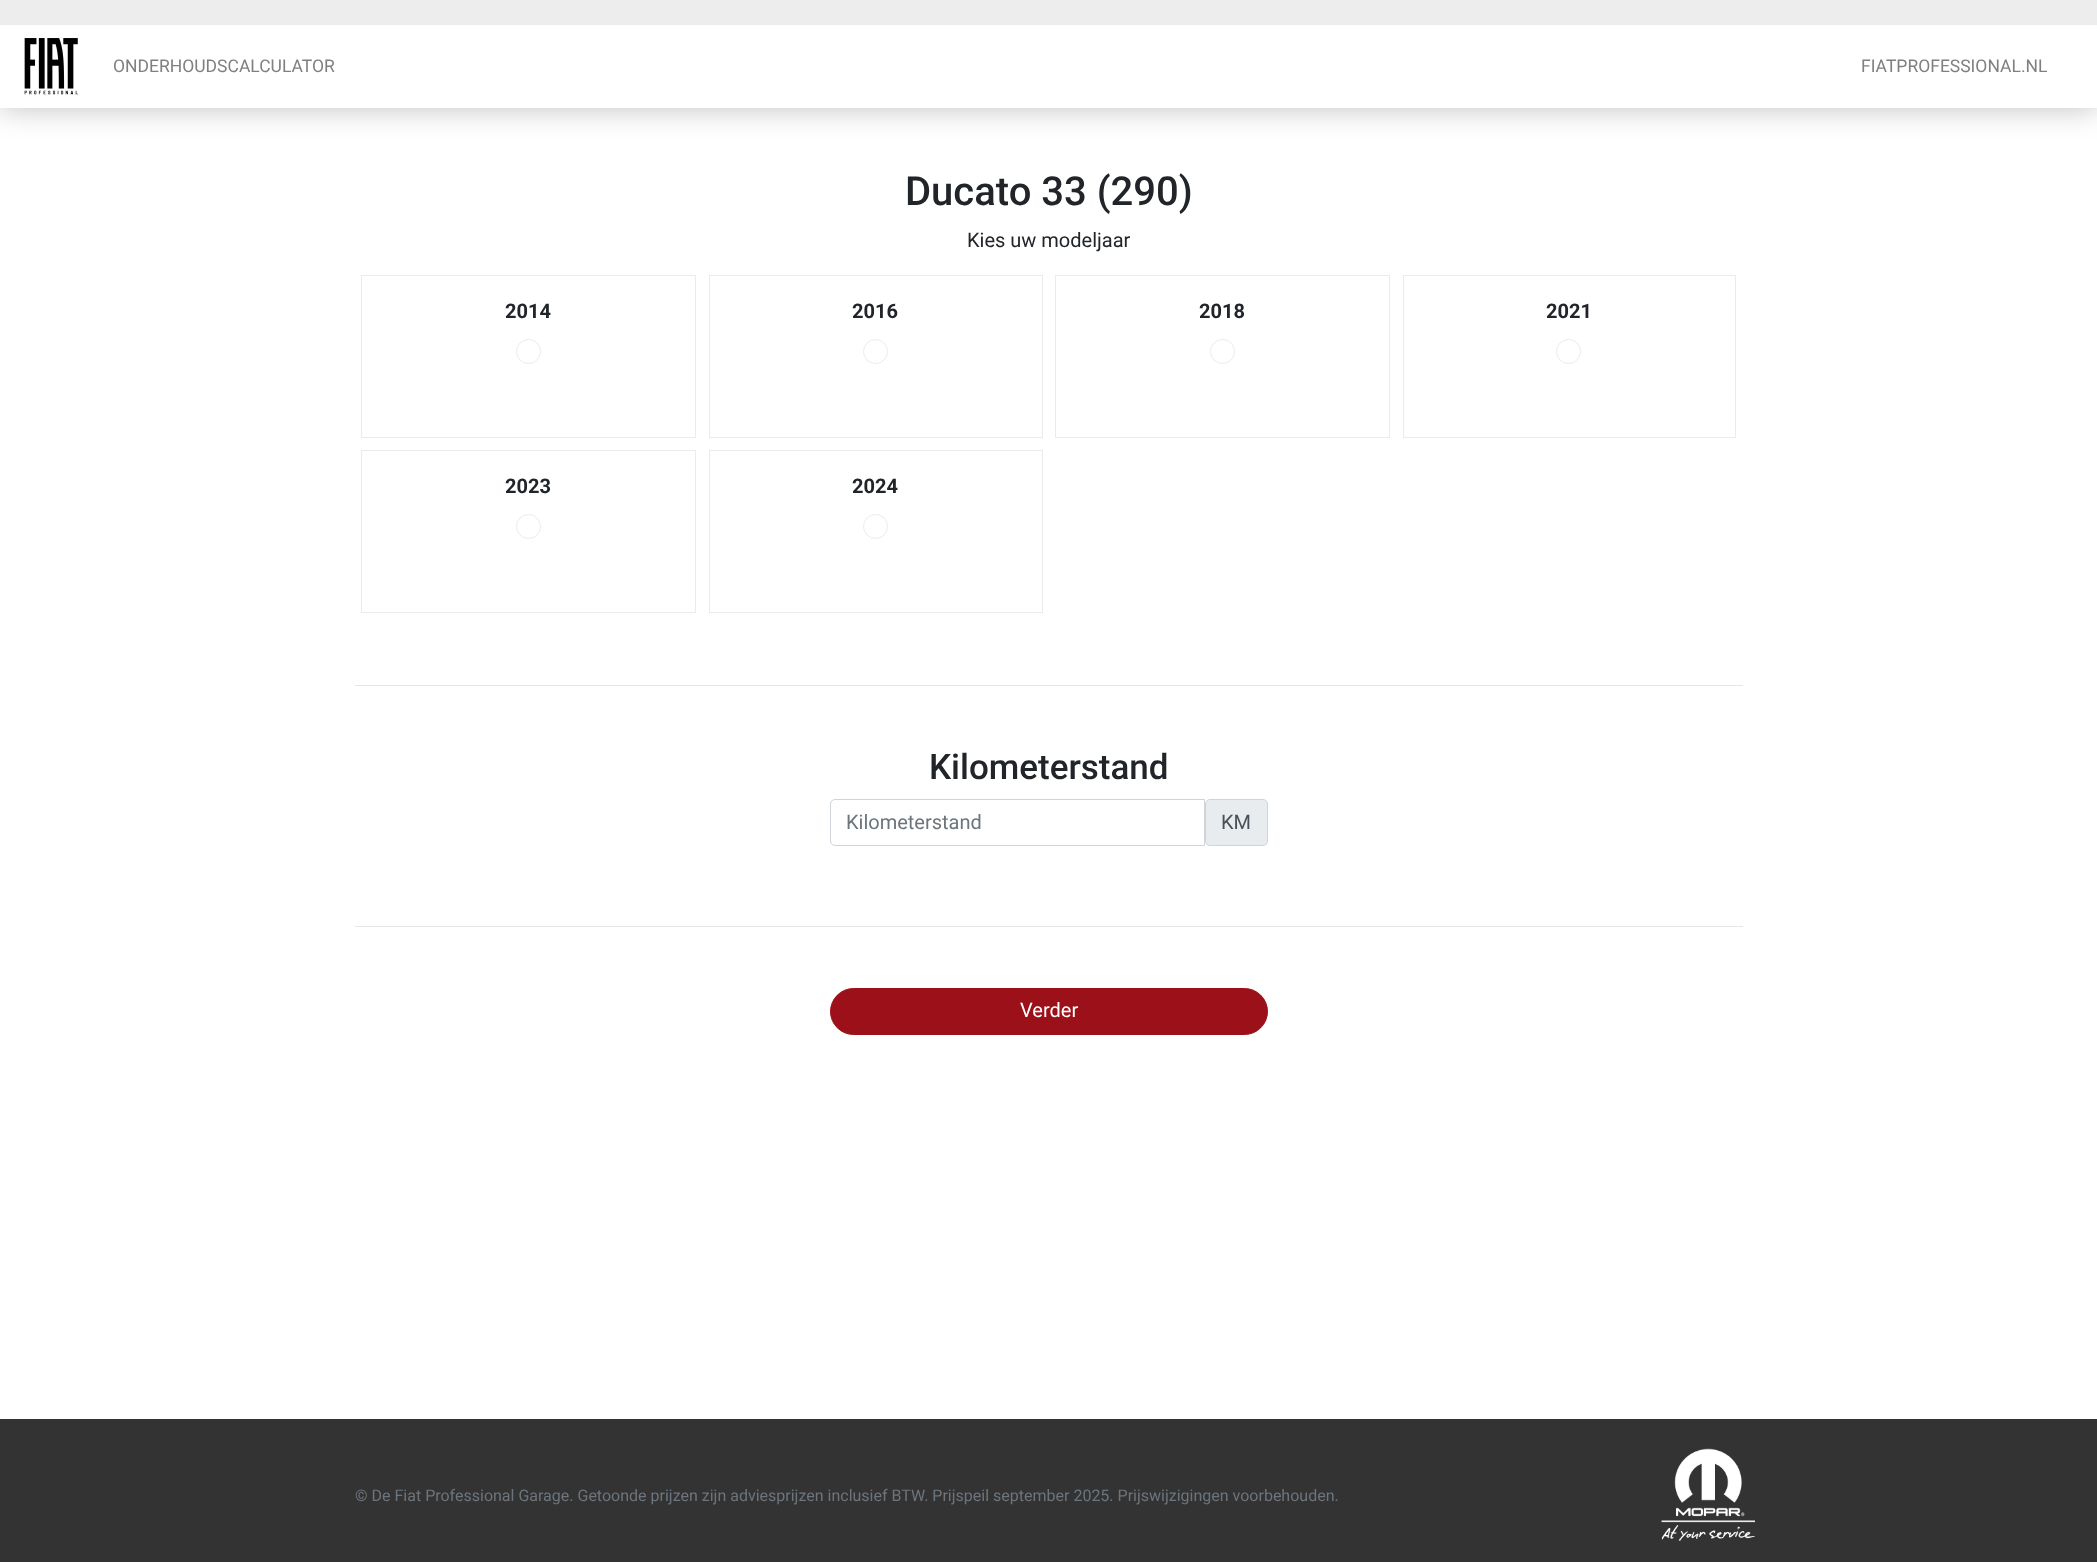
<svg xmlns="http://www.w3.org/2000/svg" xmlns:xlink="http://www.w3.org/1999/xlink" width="2097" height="1562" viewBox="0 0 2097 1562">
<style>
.cls-1{font:17.5px Roboto;fill:#808080}
.cls-2{font:500 40px Roboto;fill:#212529}
.cls-3{font:20px Roboto;fill:#212529}
.cls-4{font:bold 20px Roboto;fill:#212529}
.cls-5{font:500 35px Roboto;fill:#212529}
.cls-6{font:20px Roboto;fill:#6c757d}
.cls-7{font:20px Roboto;fill:#495057}
.cls-8{font:20px Roboto;fill:#ffffff}
.cls-9{font:16px Roboto;fill:#6c757d}
</style>
<rect width="100%" height="100%" fill="#ffffff"/>
<rect fill="#000000" fill-opacity="0.25" filter="blur(15px)" x="0" y="0" width="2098" height="108"/>
<rect fill="#ffffff" x="0" y="25" width="2097" height="83"/>
<rect fill="#ededed" x="0" y="0" width="2097" height="25"/>
<image xlink:href="image0.png" x="24" y="38" width="54" height="57"/>
<rect fill="none" stroke="#e9ecef" x="361.5" y="275.5" width="334" height="162"/>
<circle fill="none" stroke="#e9ecef" cx="528.5" cy="351.5" r="12"/>
<rect fill="none" stroke="#e9ecef" x="709.5" y="275.5" width="333" height="162"/>
<circle fill="none" stroke="#e9ecef" cx="875.5" cy="351.5" r="12"/>
<rect fill="none" stroke="#e9ecef" x="1055.5" y="275.5" width="334" height="162"/>
<circle fill="none" stroke="#e9ecef" cx="1222.5" cy="351.5" r="12"/>
<rect fill="none" stroke="#e9ecef" x="1403.5" y="275.5" width="332" height="162"/>
<circle fill="none" stroke="#e9ecef" cx="1568.5" cy="351.5" r="12"/>
<rect fill="none" stroke="#e9ecef" x="361.5" y="450.5" width="334" height="162"/>
<circle fill="none" stroke="#e9ecef" cx="528.5" cy="526.5" r="12"/>
<rect fill="none" stroke="#e9ecef" x="709.5" y="450.5" width="333" height="162"/>
<circle fill="none" stroke="#e9ecef" cx="875.5" cy="526.5" r="12"/>
<rect fill="#e6e6e6" x="355" y="685" width="1388" height="1"/>
<path fill="none" stroke="#ced4da" d="M835 799.5H1204.5V845.5H835C832.5 845.5 830.5 843.5 830.5 841V804C830.5 801.5 832.5 799.5 835 799.5Z"/>
<rect fill="#e9ecef" stroke="#ced4da" x="1205.5" y="799.5" width="62" height="46" rx="4.5"/>
<rect fill="#e6e6e6" x="355" y="926" width="1388" height="1"/>
<rect fill="#9c1019" stroke="#9c1019" x="830.5" y="988.5" width="437" height="46" rx="23"/>
<rect fill="#333333" x="0" y="1419" width="2097" height="143"/>
<image xlink:href="image1.png" x="1661" y="1448" width="94" height="93"/>
<text class="cls-1" x="113" y="72">ONDERHOUDSCALCULATOR</text>
<text class="cls-1" x="1861" y="72">FIATPROFESSIONAL.NL</text>
<text class="cls-2" x="905" y="205">Ducato 33 (290)</text>
<text class="cls-3" x="967" y="247">Kies uw modeljaar</text>
<text class="cls-4" x="505" y="318">2014</text>
<text class="cls-4" x="852" y="318">2016</text>
<text class="cls-4" x="1199" y="318">2018</text>
<text class="cls-4" x="1546" y="318">2021</text>
<text class="cls-4" x="505" y="493">2023</text>
<text class="cls-4" x="852" y="493">2024</text>
<text class="cls-5" x="929" y="779">Kilometerstand</text>
<text class="cls-6" x="846" y="829">Kilometerstand</text>
<text class="cls-7" x="1221" y="829">KM</text>
<text class="cls-8" x="1020" y="1017">Verder</text>
<text class="cls-9" x="355" y="1501">© De Fiat Professional Garage. Getoonde prijzen zijn adviesprijzen inclusief BTW. Prijspeil september 2025. Prijswijzigingen voorbehouden.</text>
</svg>
